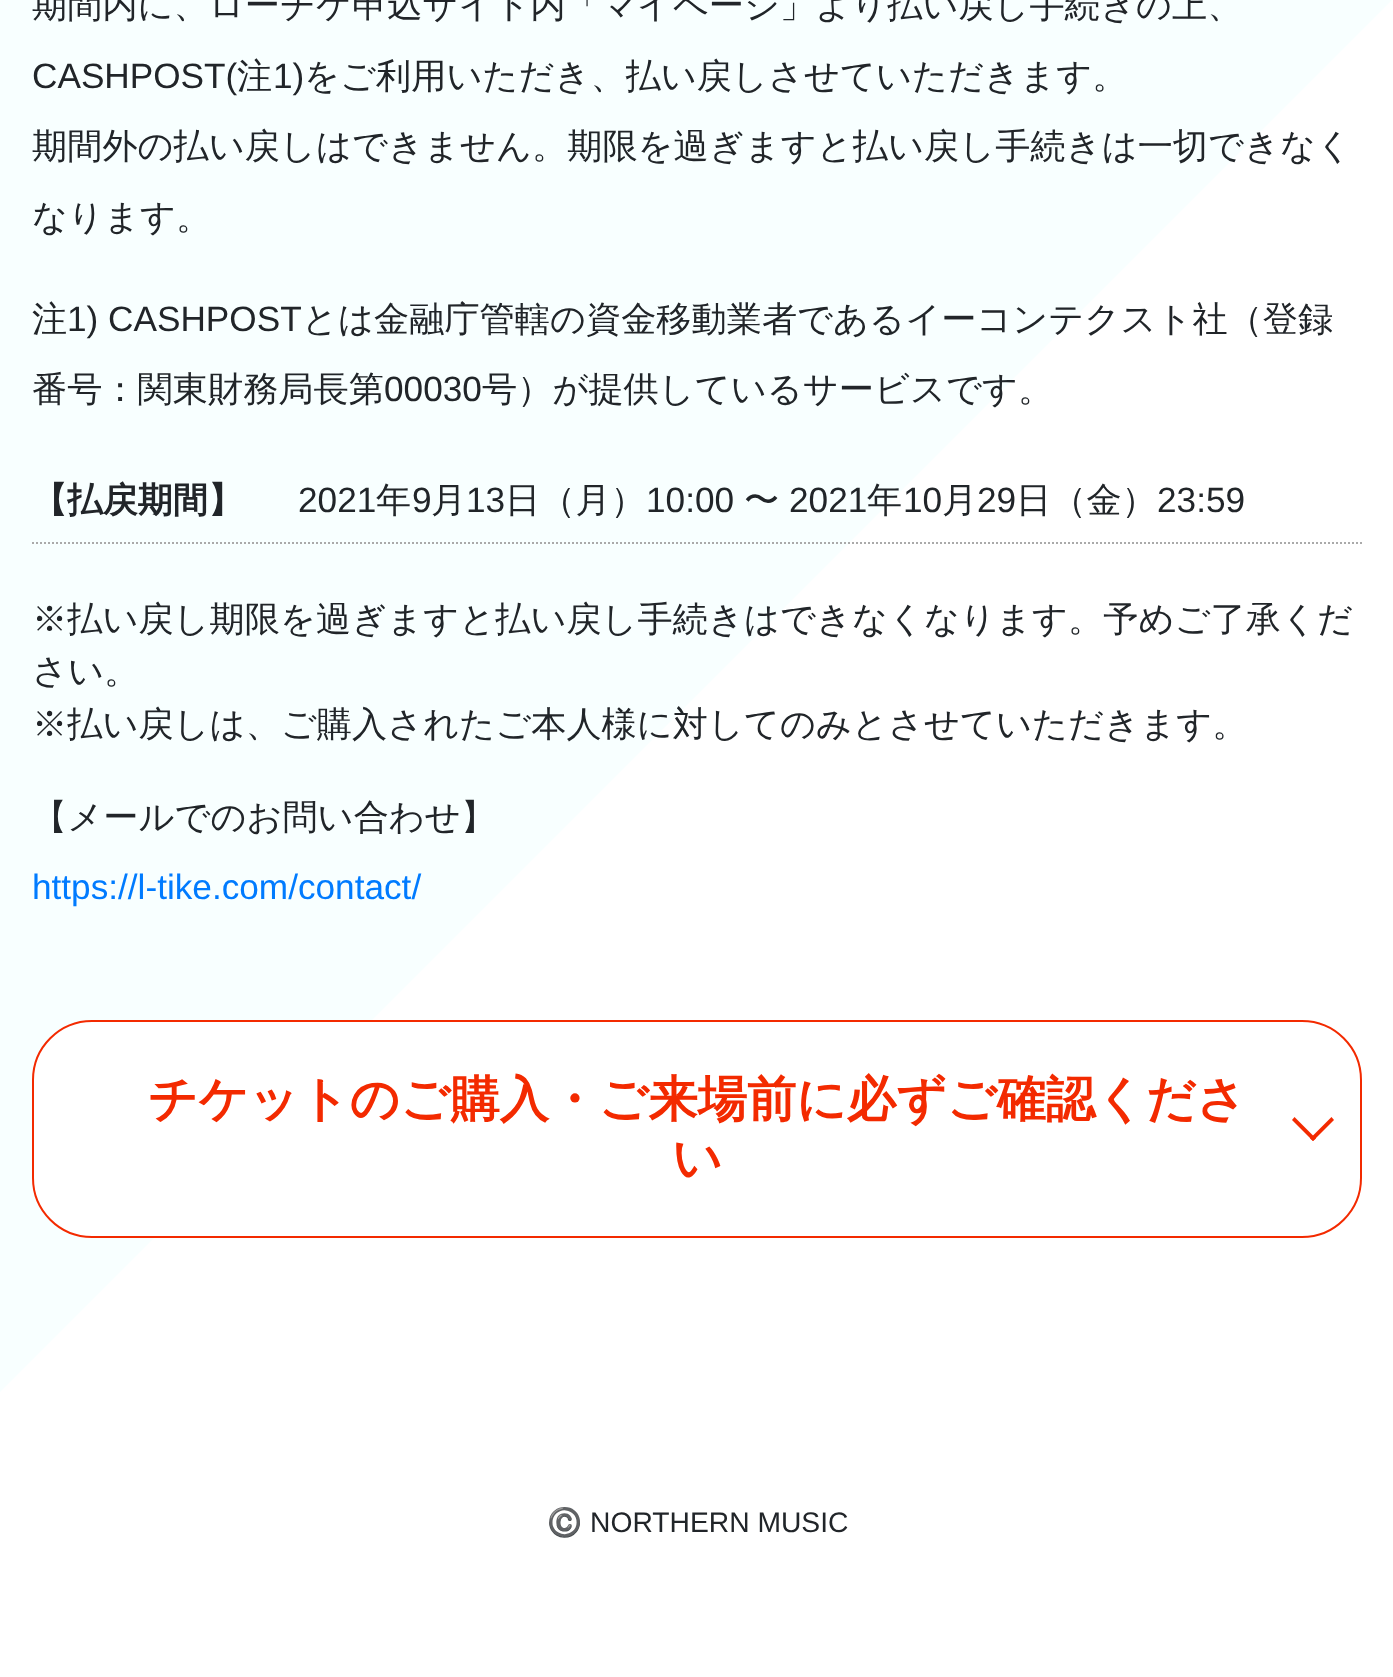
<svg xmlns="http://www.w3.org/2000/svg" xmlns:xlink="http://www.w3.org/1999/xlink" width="1393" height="1677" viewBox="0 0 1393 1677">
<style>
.cls-1{font:500 35.2px WenQuanYi Zen Hei;fill:#212529}
.cls-2{font:35.2px Liberation Sans;fill:#212529}
.cls-3{font:bold 35.2px WenQuanYi Zen Hei;fill:#212529}
.cls-4{font:35.2px Liberation Sans;fill:#007bff}
.cls-5{font:bold 49.25px WenQuanYi Zen Hei;fill:#f32a00}
.cls-6{font:28.25px Noto Color Emoji;fill:#212529}
.cls-7{font:28.25px Liberation Sans;fill:#212529}
</style>
<rect width="100%" height="100%" fill="#ffffff"/>
<path fill="#f8ffff" d="M0 0H1392L696 696Z"/>
<path fill="#f8ffff" d="M0 1392V0L696 696Z"/>
<path fill="none" stroke="#aaaaaa" stroke-width="2" stroke-dasharray="2 2" d="M32 543H1362"/>
<rect fill="#ffffff" stroke="#f32a00" stroke-width="2" x="33" y="1021" width="1328" height="216" rx="59"/>
<path fill="#f32a00" d="M1331.5 1117L1334 1120L1313 1141L1310 1138.5Z"/>
<path fill="#f32a00" d="M1294.5 1117L1316 1138.5L1313 1141L1292 1120Z"/>
<text class="cls-1" x="32" y="17">期間内に、ローチケ申込サイト内「マイページ」より払い戻し手続きの上、</text>
<text class="cls-2" x="32" y="88">CASHPOST(</text>
<text class="cls-1" x="237" y="88">注</text>
<text class="cls-2" x="273" y="88">1)</text>
<text class="cls-1" x="304" y="88">をご利用いただき、払い戻しさせていただきます。</text>
<text class="cls-1" x="32" y="158">期間外の払い戻しはできません。期限を過ぎますと払い戻し手続きは一切できなく</text>
<text class="cls-1" x="32" y="229">なります。</text>
<text class="cls-1" x="32" y="331">注</text>
<text class="cls-2" x="67" y="331">1) CASHPOST</text>
<text class="cls-1" x="302" y="331">とは金融庁管轄の資金移動業者であるイーコンテクスト社（登録</text>
<text class="cls-1" x="32" y="401">番号：関東財務局長第</text>
<text class="cls-2" x="384" y="401">00030</text>
<text class="cls-1" x="482" y="401">号）が提供しているサービスです。</text>
<text class="cls-3" x="32" y="512">【払戻期間】</text>
<text class="cls-2" x="298" y="512">2021</text>
<text class="cls-1" x="376" y="512">年</text>
<text class="cls-2" x="412" y="512">9</text>
<text class="cls-1" x="431" y="512">月</text>
<text class="cls-2" x="466" y="512">13</text>
<text class="cls-1" x="505" y="512">日（月）</text>
<text class="cls-2" x="646" y="512">10:00</text>
<text class="cls-1" x="744" y="512">〜</text>
<text class="cls-2" x="789" y="512">2021</text>
<text class="cls-1" x="867" y="512">年</text>
<text class="cls-2" x="903" y="512">10</text>
<text class="cls-1" x="942" y="512">月</text>
<text class="cls-2" x="977" y="512">29</text>
<text class="cls-1" x="1016" y="512">日（金）</text>
<text class="cls-2" x="1157" y="512">23:59</text>
<text class="cls-1"><tspan x="32" y="631">※払い戻し期限を過ぎますと払い戻し手続きはできなくなります。予めご了承くだ</tspan><tspan x="32" y="683">さい。</tspan><tspan x="32" y="736">※払い戻しは、ご購入されたご本人様に対してのみとさせていただきます。</tspan></text>
<text class="cls-1" x="32" y="829">【メールでのお問い合わせ】</text>
<text class="cls-4" x="32" y="899">https://l-tike.com/contact/</text>
<text class="cls-5" x="148" y="1116">チケットのご購入・ご来場前に必ずご確認くださ</text>
<text class="cls-5" x="672" y="1175">い</text>
<text class="cls-6" x="547" y="1532">©️</text>
<text class="cls-7" x="590" y="1532">NORTHERN MUSIC</text>
</svg>
